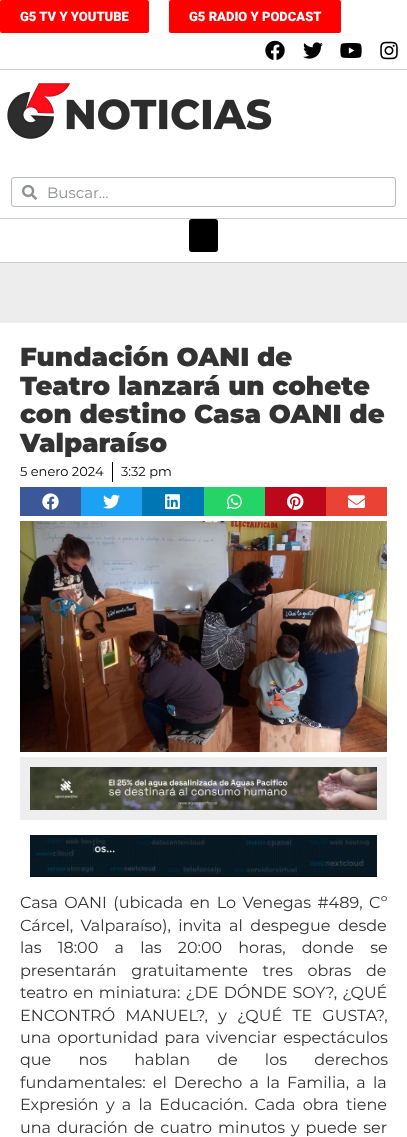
<svg xmlns="http://www.w3.org/2000/svg" xmlns:xlink="http://www.w3.org/1999/xlink" width="407" height="1137" viewBox="0 0 407 1137">
<style>
.cls-1{font:900 13px Roboto;fill:#ffffff}
.cls-2{font:15px Montserrat;fill:#8c8f93}
.cls-3{font:900 26px Montserrat;fill:#333333}
.cls-4{font:13px Montserrat;fill:#000000}
.cls-5{font:16px Montserrat;fill:#333333}
</style>
<rect width="100%" height="100%" fill="#ffffff"/>
<rect fill="#cccccc" x="0" y="69" width="407" height="1"/>
<rect fill="#ff0000" x="0" y="0" width="149" height="33" rx="2"/>
<rect fill="#ff0000" x="169" y="0" width="172" height="33" rx="2"/>
<image xlink:href="image0.png" x="265" y="40" width="20" height="20"/>
<image xlink:href="image1.png" x="303" y="42" width="20" height="17"/>
<image xlink:href="image2.png" x="340" y="43" width="22" height="15"/>
<image xlink:href="image3.png" x="380" y="41" width="18" height="19"/>
<rect fill="#cccccc" x="0" y="218" width="407" height="1"/>
<image xlink:href="image4.png" x="7" y="83" width="265" height="56"/>
<rect fill="none" stroke="#bcbbbb" x="11.5" y="177.5" width="384" height="29" rx="2.5"/>
<image xlink:href="image5.png" x="22" y="184" width="15" height="16"/>
<rect fill="#cccccc" x="0" y="262" width="407" height="1"/>
<rect fill="#000000" x="189" y="219" width="29" height="33" rx="3"/>
<rect fill="#ededed" x="0" y="263" width="407" height="60"/>
<rect fill="#000000" x="112" y="462" width="1" height="20"/>
<rect fill="#3b5998" x="20" y="487" width="61" height="29"/>
<image xlink:href="image6.png" x="42" y="493" width="17" height="17"/>
<rect fill="#1da1f2" x="81" y="487" width="61" height="29"/>
<image xlink:href="image7.png" x="103" y="494" width="17" height="15"/>
<rect fill="#0077b5" x="142" y="487" width="62" height="29"/>
<image xlink:href="image8.png" x="165" y="494" width="15" height="16"/>
<rect fill="#25d366" x="204" y="487" width="61" height="29"/>
<image xlink:href="image9.png" x="227" y="494" width="15" height="15"/>
<rect fill="#bd081c" x="265" y="487" width="61" height="29"/>
<image xlink:href="image10.png" x="287" y="493" width="17" height="17"/>
<rect fill="#ea4335" x="326" y="487" width="61" height="29"/>
<image xlink:href="image11.png" x="348" y="495" width="17" height="13"/>
<image xlink:href="image12.png" x="20" y="521" width="367" height="231"/>
<rect fill="#eeeeee" x="20" y="757" width="367" height="63"/>
<image xlink:href="image13.png" x="30" y="767" width="347" height="43"/>
<image xlink:href="image14.png" x="30" y="835" width="347" height="42"/>
<text class="cls-1" x="20" y="21">G5 TV Y YOUTUBE</text>
<text class="cls-1" x="189" y="21">G5 RADIO Y PODCAST</text>
<text class="cls-2" x="47" y="198">Buscar...</text>
<text class="cls-3"><tspan x="20" y="366">Fundación OANI de</tspan><tspan x="20" y="395">Teatro lanzará un cohete</tspan><tspan x="20" y="423">con destino Casa OANI de</tspan><tspan x="20" y="452">Valparaíso</tspan></text>
<text class="cls-4" x="20" y="476">5 enero 2024</text>
<text class="cls-4" x="121" y="476">3:32 pm</text>
<text class="cls-5"><tspan x="20" y="908" word-spacing="2.25">Casa OANI (ubicada en Lo Venegas #489, Cº</tspan><tspan x="20" y="931" word-spacing="3.25">Cárcel, Valparaíso), invita al despegue desde</tspan><tspan x="20" y="953" word-spacing="12">las 18:00 a las 20:00 horas, donde se</tspan><tspan x="20" y="976" word-spacing="10.5">presentarán gratuitamente tres obras de</tspan><tspan x="20" y="998" word-spacing="1">teatro en miniatura: ¿DE DÓNDE SOY?, ¿QUÉ</tspan><tspan x="20" y="1021" word-spacing="6">ENCONTRÓ MANUEL?, y ¿QUÉ TE GUSTA?,</tspan><tspan x="20" y="1043" word-spacing="2">una oportunidad para vivenciar espectáculos</tspan><tspan x="20" y="1065" word-spacing="23">que nos hablan de los derechos</tspan><tspan x="20" y="1088" word-spacing="3">fundamentales: el Derecho a la Familia, a la</tspan><tspan x="20" y="1110" word-spacing="3">Expresión y a la Educación. Cada obra tiene</tspan><tspan x="20" y="1133" word-spacing="1.75">una duración de cuatro minutos y puede ser</tspan></text>
</svg>
